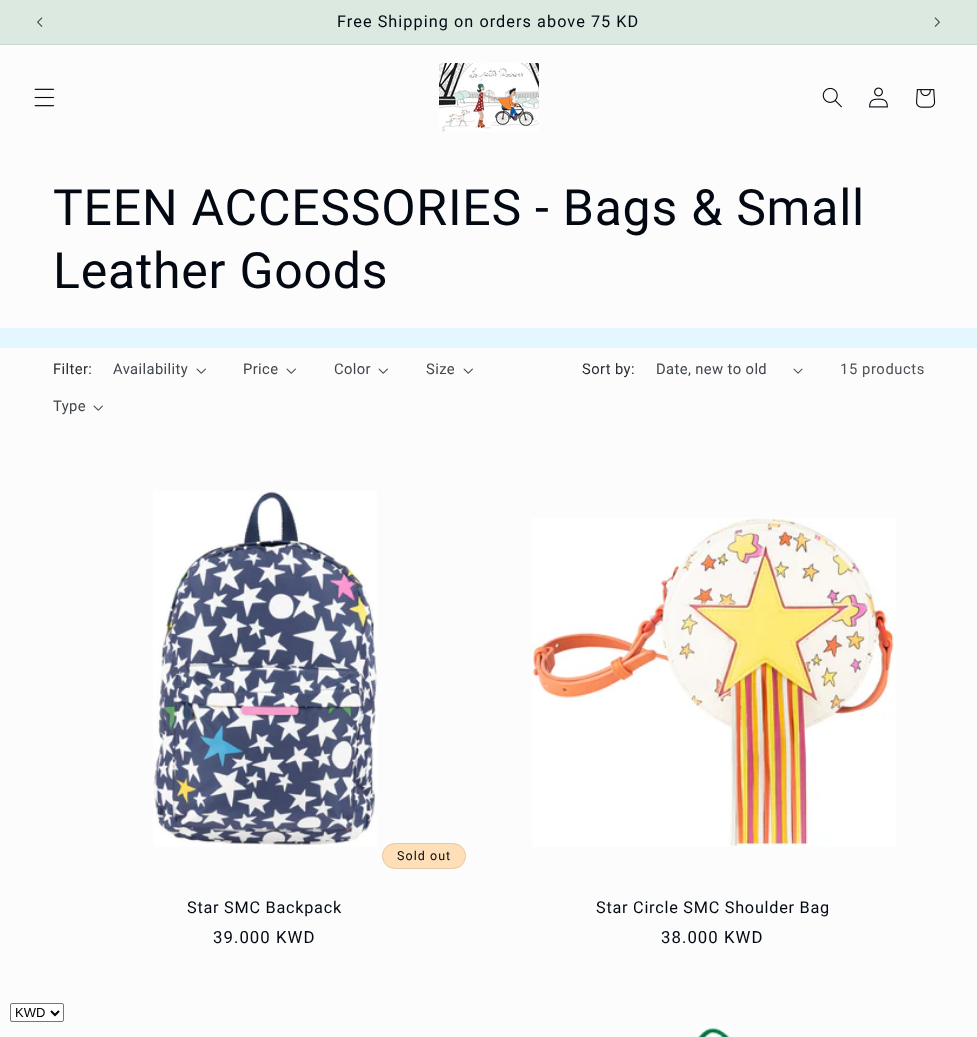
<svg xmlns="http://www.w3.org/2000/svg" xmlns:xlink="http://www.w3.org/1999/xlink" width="977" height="1037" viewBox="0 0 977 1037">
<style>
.cls-1{font:16.25px Roboto;letter-spacing:1.05px;fill:#020912}
.cls-2{font:50px Roboto;letter-spacing:0.75px;fill:#020912}
.cls-3{font:14.75px Roboto;letter-spacing:0.4px;fill:#282d35}
.cls-4{font:14.75px Roboto;letter-spacing:0.4px;fill:#41464d}
.cls-5{font:14.75px Roboto;letter-spacing:0.6px;fill:#4d5258}
.cls-6{font:12.5px Roboto;letter-spacing:1.05px;fill:#020912}
.cls-7{font:16.25px Roboto;letter-spacing:0.75px;fill:#020912}
.cls-8{font:16.75px Roboto;letter-spacing:1.05px;fill:#020912}
.cls-9{font:13px Liberation Sans;fill:#000000}
</style>
<rect width="100%" height="100%" fill="#e4f6ff"/>
<rect fill="#dbe9e0" x="0" y="0" width="977" height="44"/>
<rect fill="#cad7d0" x="0" y="44" width="977" height="1"/>
<image xlink:href="image0.png" x="37" y="17" width="6" height="10"/>
<image xlink:href="image1.png" x="934" y="17" width="6" height="10"/>
<rect fill="#fcfcfc" x="0" y="45" width="977" height="283"/>
<image xlink:href="image2.png" x="34" y="88" width="20" height="19"/>
<image xlink:href="image3.png" x="439" y="63" width="100" height="69"/>
<image xlink:href="image4.png" x="822" y="87" width="20" height="21"/>
<image xlink:href="image5.png" x="869" y="87" width="19" height="21"/>
<image xlink:href="image6.png" x="916" y="89" width="20" height="19"/>
<rect fill="#fcfcfc" x="0" y="348" width="977" height="689"/>
<image xlink:href="image7.png" x="196" y="368" width="10" height="6"/>
<image xlink:href="image7.png" x="286" y="368" width="10" height="6"/>
<image xlink:href="image7.png" x="378" y="368" width="10" height="6"/>
<image xlink:href="image7.png" x="463" y="368" width="10" height="6"/>
<image xlink:href="image7.png" x="93" y="405" width="10" height="6"/>
<image xlink:href="image8.png" x="793" y="368" width="10" height="6"/>
<image xlink:href="image9.png" x="153" y="491" width="224" height="356"/>
<rect fill="#ffdfb8" x="382" y="843" width="84" height="26" rx="13"/>
<rect fill="none" stroke="#020912" stroke-opacity="0.1" x="382.5" y="843.5" width="83" height="25" rx="12.5"/>
<image xlink:href="image10.png" x="532" y="518" width="364" height="329"/>
<image xlink:href="image11.png" x="697" y="1027" width="33" height="10"/>
<rect fill="#ffffff" stroke="#767676" x="10.5" y="1003.5" width="53" height="18" rx="1.5"/>
<path fill="none" stroke="#000000" stroke-width="2" d="M51 1011L55 1015L59 1011"/>
<text class="cls-1" x="337" y="27">Free Shipping on orders above 75 KD</text>
<text class="cls-2"><tspan x="53" y="225">TEEN ACCESSORIES - Bags &amp; Small</tspan><tspan x="53" y="288">Leather Goods</tspan></text>
<text class="cls-3" x="53" y="374">Filter:</text>
<text class="cls-4" x="113" y="374">Availability</text>
<text class="cls-4" x="243" y="374">Price</text>
<text class="cls-4" x="334" y="374">Color</text>
<text class="cls-4" x="426" y="374">Size</text>
<text class="cls-4" x="53" y="411">Type</text>
<text class="cls-3" x="582" y="374">Sort by:</text>
<text class="cls-4" x="656" y="374">Date, new to old</text>
<text class="cls-5" x="840" y="374">15 products</text>
<text class="cls-6" x="397" y="860">Sold out</text>
<text class="cls-7" x="187" y="913">Star SMC Backpack</text>
<text class="cls-8" x="213" y="943">39.000 KWD</text>
<text class="cls-7" x="596" y="913">Star Circle SMC Shoulder Bag</text>
<text class="cls-8" x="661" y="943">38.000 KWD</text>
<text class="cls-9" x="15" y="1017">KWD</text>
</svg>
